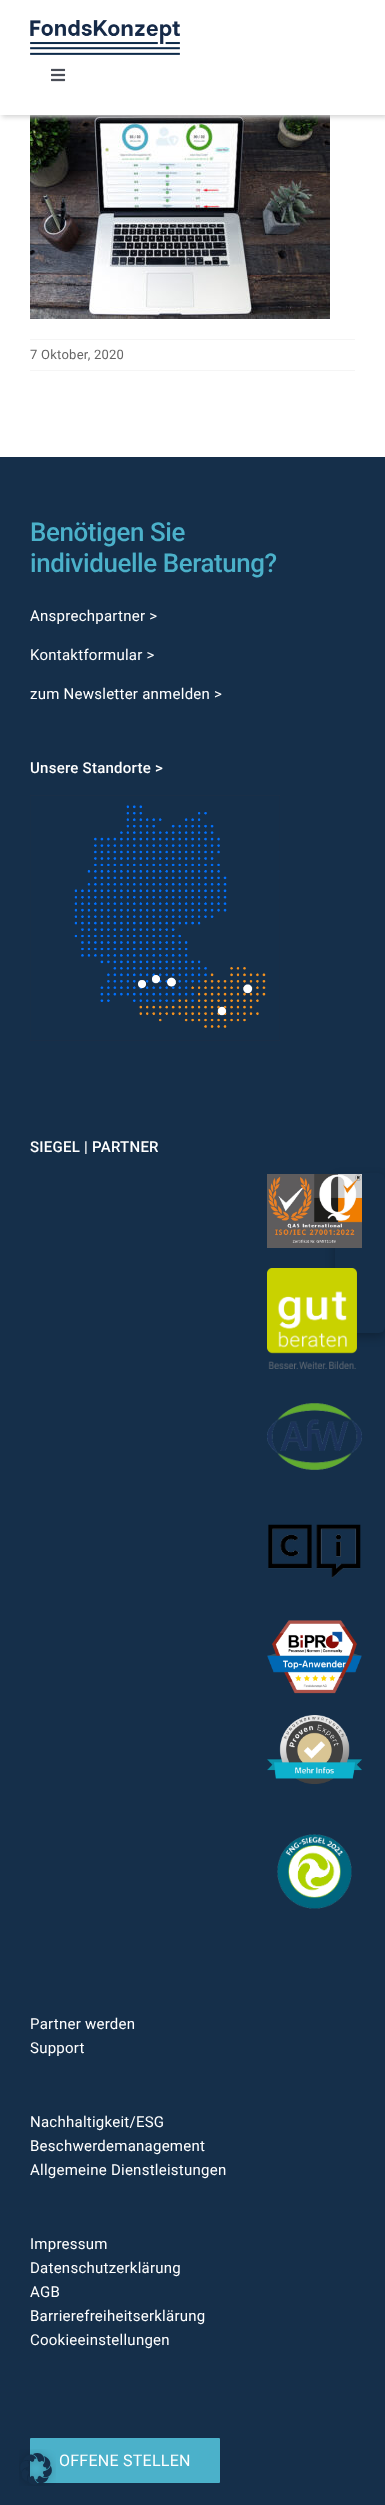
<svg xmlns="http://www.w3.org/2000/svg" xmlns:xlink="http://www.w3.org/1999/xlink" width="385" height="2505" viewBox="0 0 385 2505">
<style>
.cls-1{font:13px Roboto;letter-spacing:0.25px;fill:#666666}
.cls-2{font:500 25.9px Roboto;letter-spacing:-0.4px;fill:#4bb1ca}
.cls-3{font:15px Roboto;letter-spacing:0.25px;fill:#ffffff}
.cls-4{font:500 15px Roboto;letter-spacing:0.25px;fill:#ffffff}
.cls-5{font:16px Roboto;letter-spacing:0.25px;fill:#ffffff}
</style>
<defs>
<clipPath id="clip1"><rect x="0" y="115" width="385" height="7"/></clipPath>
</defs>
<rect width="100%" height="100%" fill="#ffffff"/>
<image xlink:href="image2.png" x="30" y="115" width="300" height="204"/>
<g clip-path="url(#clip1)">
<rect fill="#d3d3d3" filter="blur(2.5px)" x="2" y="2" width="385" height="115"/>
</g>
<image xlink:href="image0.png" x="30" y="20" width="150" height="35"/>
<image xlink:href="image1.png" x="51" y="68" width="15" height="14"/>
<rect fill="#f5f5f5" x="30" y="339" width="325" height="1"/>
<rect fill="#f5f5f5" x="30" y="370" width="325" height="1"/>
<rect fill="#152f4a" x="0" y="457" width="385" height="2048"/>
<image xlink:href="image3.png" x="30" y="795" width="250" height="246"/>
<rect fill="#000000" fill-opacity="0.25" filter="blur(5px)" x="335" y="1177" width="50" height="160" rx="6"/>
<rect fill="#152f4a" x="335" y="1173" width="50" height="160" rx="6"/>
<image xlink:href="image4.png" x="267" y="1174" width="95" height="74"/>
<image xlink:href="image5.png" x="267" y="1268" width="90" height="101"/>
<image xlink:href="image6.png" x="267" y="1403" width="95" height="67"/>
<image xlink:href="image7.png" x="268" y="1524" width="93" height="54"/>
<image xlink:href="image8.png" x="267" y="1620" width="95" height="74"/>
<image xlink:href="image9.png" x="267" y="1715" width="95" height="69"/>
<image xlink:href="image10.png" x="277" y="1834" width="75" height="75"/>
<rect fill="#4bb1ca" x="30" y="2438" width="190" height="45" rx="1"/>
<image xlink:href="image11.png" x="19" y="2449" width="37" height="37"/>
<text class="cls-1" x="30" y="359">7 Oktober, 2020</text>
<text class="cls-2"><tspan x="30" y="541">Benötigen Sie</tspan><tspan x="30" y="572">individuelle Beratung?</tspan></text>
<text class="cls-3" x="30" y="621">Ansprechpartner &gt;</text>
<text class="cls-3" x="30" y="660">Kontaktformular &gt;</text>
<text class="cls-3" x="30" y="699">zum Newsletter anmelden &gt;</text>
<text class="cls-4" x="30" y="773">Unsere Standorte &gt;</text>
<text class="cls-4" x="30" y="1152">SIEGEL | PARTNER</text>
<text class="cls-3"><tspan x="30" y="2029">Partner werden</tspan><tspan x="30" y="2053">Support</tspan></text>
<text class="cls-3"><tspan x="30" y="2127">Nachhaltigkeit/ESG</tspan><tspan x="30" y="2151">Beschwerdemanagement</tspan><tspan x="30" y="2175">Allgemeine Dienstleistungen</tspan></text>
<text class="cls-3"><tspan x="30" y="2249">Impressum</tspan><tspan x="30" y="2273">Datenschutzerklärung</tspan><tspan x="30" y="2297">AGB</tspan><tspan x="30" y="2321">Barrierefreiheitserklärung</tspan><tspan x="30" y="2345">Cookieeinstellungen</tspan></text>
<text class="cls-5" x="59" y="2466">OFFENE STELLEN</text>
</svg>
